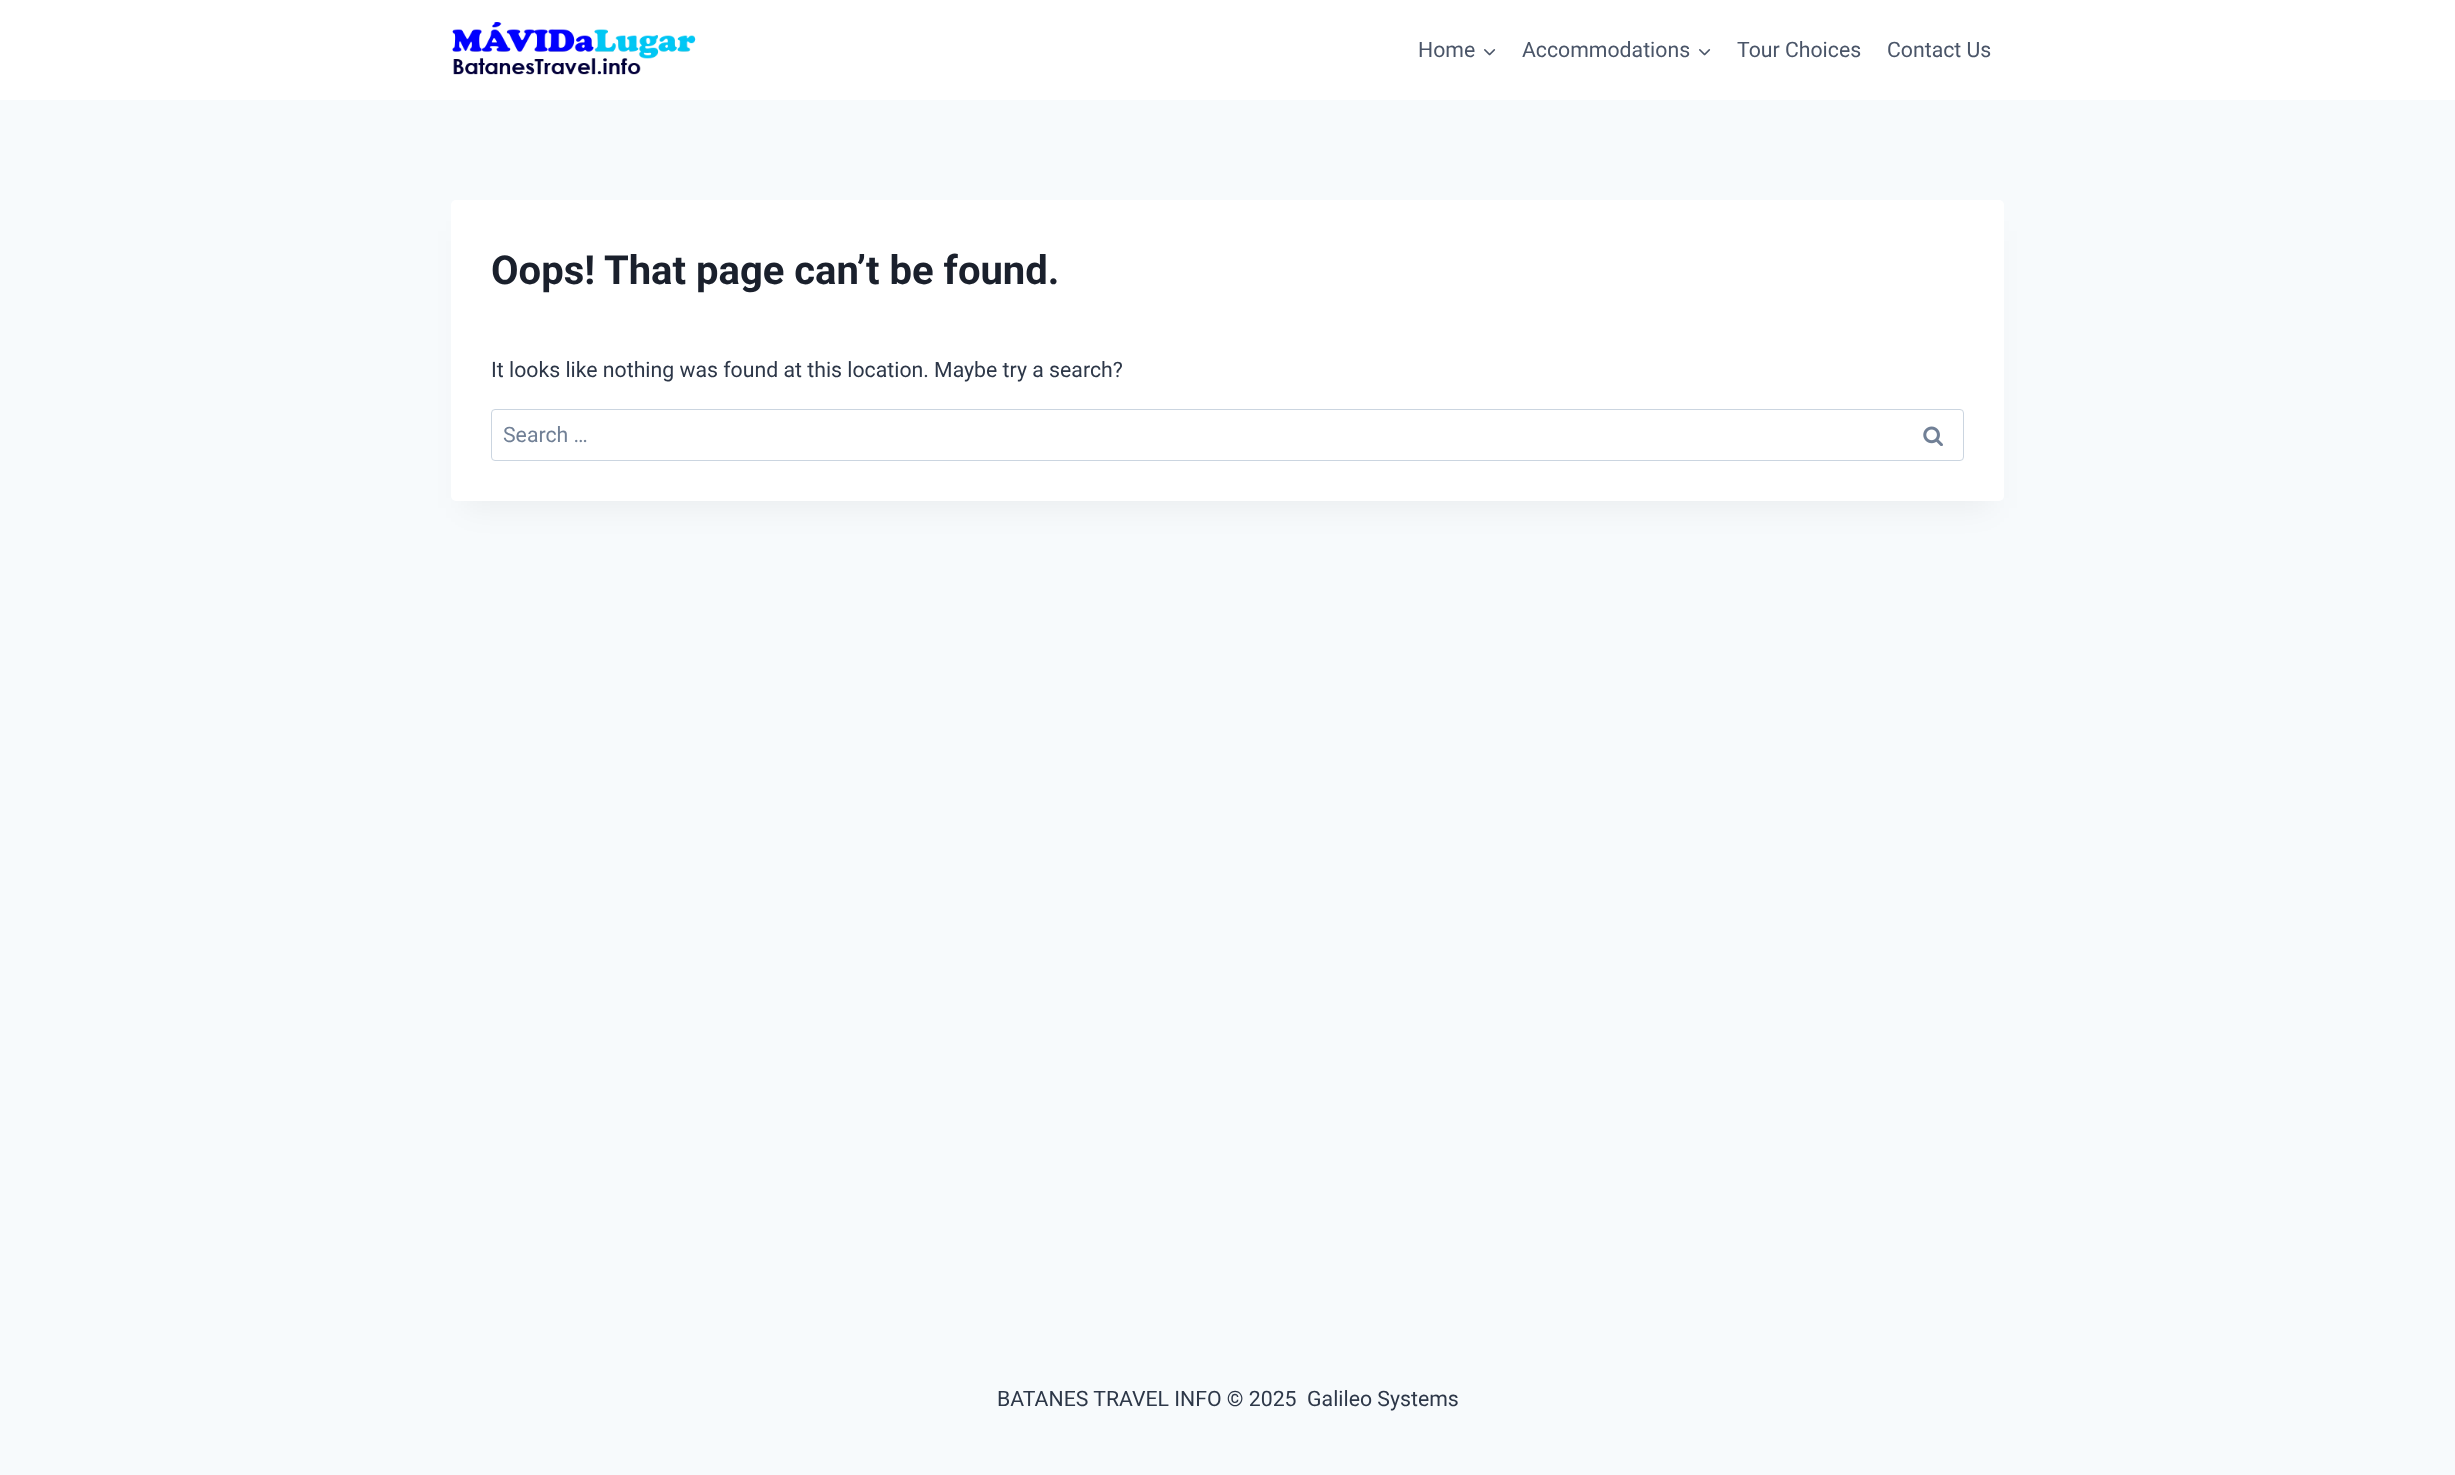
<svg xmlns="http://www.w3.org/2000/svg" xmlns:xlink="http://www.w3.org/1999/xlink" width="2455" height="1475" viewBox="0 0 2455 1475">
<style>
.cls-1{font:21.25px Roboto;fill:#4a5568}
.cls-2{font:bold 40px Roboto;fill:#1a202c}
.cls-3{font:21.25px Roboto;fill:#2d3748}
.cls-4{font:21.25px Roboto;fill:#718096}
</style>
<rect width="100%" height="100%" fill="#f7fafc"/>
<rect fill="#ffffff" x="0" y="0" width="2455" height="100"/>
<image xlink:href="image0.png" x="452" y="22" width="244" height="53"/>
<image xlink:href="image1.png" x="1484" y="49" width="12" height="7"/>
<image xlink:href="image1.png" x="1699" y="49" width="12" height="7"/>
<rect fill="#000000" fill-opacity="0.05" filter="blur(15.5px)" x="464" y="231" width="1527" height="277"/>
<rect fill="#ffffff" x="451" y="200" width="1553" height="301" rx="5"/>
<rect fill="none" stroke="#cbd5e0" x="491.5" y="409.5" width="1472" height="51" rx="3.5"/>
<image xlink:href="image2.png" x="1923" y="426" width="20" height="20"/>
<text class="cls-1" x="1418" y="57">Home</text>
<text class="cls-1" x="1522" y="57">Accommodations</text>
<text class="cls-1" x="1737" y="57">Tour Choices</text>
<text class="cls-1" x="1887" y="57">Contact Us</text>
<text class="cls-2" x="491" y="284">Oops! That page can’t be found.</text>
<text class="cls-3" x="491" y="377">It looks like nothing was found at this location. Maybe try a search?</text>
<text class="cls-4" x="503" y="442">Search …</text>
<text class="cls-3" xml:space="preserve" x="997" y="1406">BATANES TRAVEL INFO © 2025  Galileo Systems</text>
</svg>
